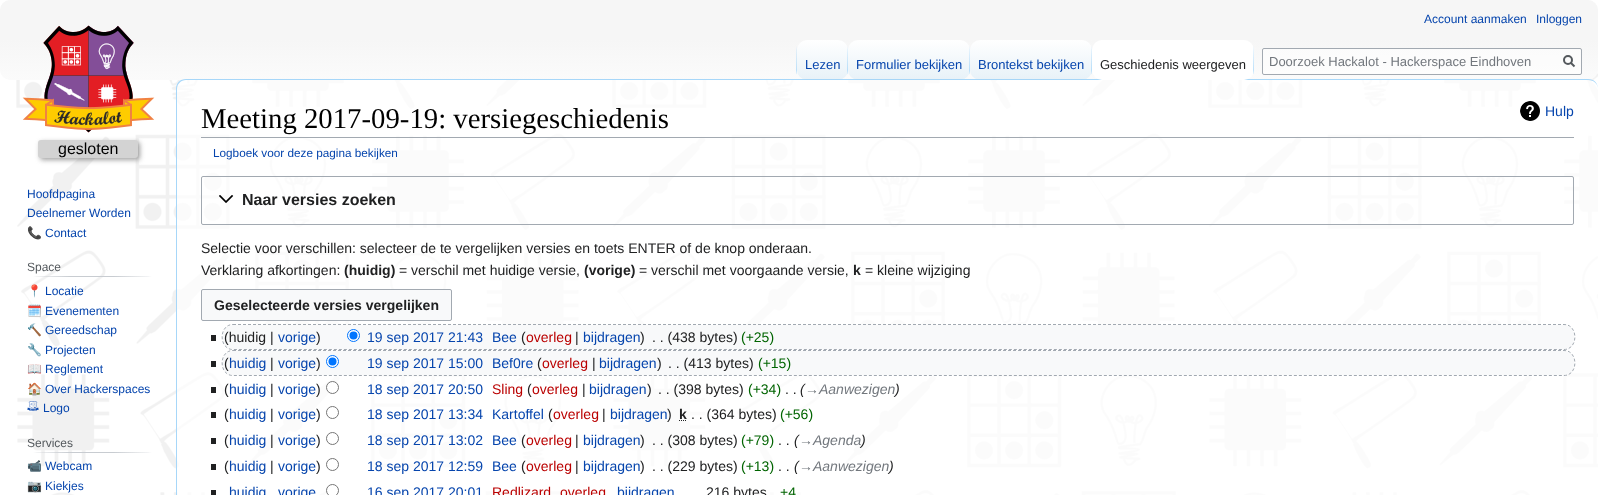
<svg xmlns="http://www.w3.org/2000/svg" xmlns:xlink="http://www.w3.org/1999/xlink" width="1598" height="495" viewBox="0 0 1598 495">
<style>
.cls-1{font:12px Liberation Sans;fill:#0645ad}
.cls-2{font:13px Liberation Sans;fill:#0645ad}
.cls-3{font:13px Liberation Sans;fill:#202122}
.cls-4{font:13px Liberation Sans;fill:#72777d}
.cls-5{font:16px Liberation Sans;fill:#000000}
.cls-6{font:12px Noto Color Emoji;fill:#0645ad}
.cls-7{font:12px Liberation Sans;fill:#54595d}
.cls-8{font:28.75px Liberation Serif;fill:#000000}
.cls-9{font:14px Liberation Sans;fill:#0645ad}
.cls-10{font:11.75px Liberation Sans;fill:#0645ad}
.cls-11{font:bold 16px Liberation Sans;fill:#202122}
.cls-12{font:14px Liberation Sans;fill:#202122}
.cls-13{font:bold 14px Liberation Sans;fill:#202122}
.cls-14{font:14px Liberation Sans;fill:#ba0000}
.cls-15{font:14px Liberation Sans;fill:#006400}
.cls-16{font:italic 14px Liberation Sans;fill:#202122}
.cls-17{font:italic 14px Liberation Sans;fill:#72777d}
</style>
<defs>
<linearGradient id="g1" gradientUnits="userSpaceOnUse" x1="799" y1="0" x2="799" y2="80"><stop offset="0.5" stop-color="#f6f6f6"/><stop offset="1" stop-color="#f6f6f6" stop-opacity="0"/></linearGradient>
<clipPath id="clip1"><rect x="796" y="40" width="458" height="40" rx="10"/></clipPath>
<linearGradient id="g2" gradientUnits="userSpaceOnUse" x1="797" y1="40" x2="797" y2="80"><stop offset="0" stop-color="#a7d7f9" stop-opacity="0"/><stop offset="1" stop-color="#a7d7f9"/></linearGradient>
<linearGradient id="g3" gradientUnits="userSpaceOnUse" x1="823" y1="80" x2="823" y2="40"><stop offset="0" stop-color="#77c1f6"/><stop offset="0.03" stop-color="#e8f2f8"/><stop offset="1" stop-color="#ffffff"/></linearGradient>
<clipPath id="clip2"><rect x="797" y="40" width="51" height="40" rx="10"/></clipPath>
<linearGradient id="g4" gradientUnits="userSpaceOnUse" x1="848" y1="40" x2="848" y2="80"><stop offset="0" stop-color="#a7d7f9" stop-opacity="0"/><stop offset="1" stop-color="#a7d7f9"/></linearGradient>
<linearGradient id="g5" gradientUnits="userSpaceOnUse" x1="909" y1="80" x2="909" y2="40"><stop offset="0" stop-color="#77c1f6"/><stop offset="0.03" stop-color="#e8f2f8"/><stop offset="1" stop-color="#ffffff"/></linearGradient>
<clipPath id="clip3"><rect x="848" y="40" width="122" height="40" rx="10"/></clipPath>
<linearGradient id="g6" gradientUnits="userSpaceOnUse" x1="970" y1="40" x2="970" y2="80"><stop offset="0" stop-color="#a7d7f9" stop-opacity="0"/><stop offset="1" stop-color="#a7d7f9"/></linearGradient>
<linearGradient id="g7" gradientUnits="userSpaceOnUse" x1="1031" y1="80" x2="1031" y2="40"><stop offset="0" stop-color="#77c1f6"/><stop offset="0.03" stop-color="#e8f2f8"/><stop offset="1" stop-color="#ffffff"/></linearGradient>
<clipPath id="clip4"><rect x="970" y="40" width="122" height="40" rx="10"/></clipPath>
<linearGradient id="g8" gradientUnits="userSpaceOnUse" x1="1092" y1="40" x2="1092" y2="80"><stop offset="0" stop-color="#a7d7f9" stop-opacity="0"/><stop offset="1" stop-color="#a7d7f9"/></linearGradient>
<clipPath id="clip5"><rect x="1092" y="40" width="162" height="40" rx="10"/></clipPath>
<linearGradient id="g9" gradientUnits="userSpaceOnUse" x1="1254" y1="40" x2="1254" y2="80"><stop offset="0" stop-color="#a7d7f9" stop-opacity="0"/><stop offset="1" stop-color="#a7d7f9"/></linearGradient>
<clipPath id="clip6"><rect x="27" y="257" width="131" height="20" rx="10"/></clipPath>
<linearGradient id="g10" gradientUnits="userSpaceOnUse" x1="27" y1="277" x2="158" y2="277"><stop offset="0" stop-color="#c8ccd1" stop-opacity="0"/><stop offset="0.33" stop-color="#c8ccd1"/><stop offset="0.66" stop-color="#c8ccd1"/><stop offset="1" stop-color="#c8ccd1" stop-opacity="0"/></linearGradient>
<clipPath id="clip7"><rect x="27" y="433" width="131" height="20" rx="10"/></clipPath>
<linearGradient id="g11" gradientUnits="userSpaceOnUse" x1="27" y1="453" x2="158" y2="453"><stop offset="0" stop-color="#c8ccd1" stop-opacity="0"/><stop offset="0.33" stop-color="#c8ccd1"/><stop offset="0.66" stop-color="#c8ccd1"/><stop offset="1" stop-color="#c8ccd1" stop-opacity="0"/></linearGradient>
</defs>
<rect width="100%" height="100%" fill="#ffffff"/>
<image xlink:href="image0.png" x="16" y="73" width="1582" height="422"/>
<rect fill="#fbfbfb" x="0" y="0" width="1598" height="80" rx="10"/>
<rect fill="url(#g1)" x="0" y="0" width="1598" height="80" rx="10"/>
<path fill="#ffffff" fill-opacity="0.7" d="M186 80H1588C1594 80 1598 84 1598 89V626C1598 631 1594 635 1588 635H186C181 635 177 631 177 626V89C177 84 181 80 186 80Z"/>
<path fill="#a7d7f9" fill-rule="evenodd" d="M186 79H1588C1594 79 1598 83 1598 89V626C1598 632 1594 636 1588 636H186C180 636 176 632 176 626V89C176 83 180 79 186 79ZM186 80H1588C1594 80 1598 84 1598 89V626C1598 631 1594 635 1588 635H186C181 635 177 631 177 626V89C177 84 181 80 186 80Z"/>
<g clip-path="url(#clip1)">
<rect fill="url(#g2)" x="796" y="40" width="1" height="40"/>
</g>
<rect fill="url(#g3)" x="797" y="40" width="51" height="40" rx="10"/>
<g clip-path="url(#clip2)">
<rect fill="url(#g4)" x="847" y="40" width="1" height="40"/>
</g>
<rect fill="url(#g5)" x="848" y="40" width="122" height="40" rx="10"/>
<g clip-path="url(#clip3)">
<rect fill="url(#g6)" x="969" y="40" width="1" height="40"/>
</g>
<rect fill="url(#g7)" x="970" y="40" width="122" height="40" rx="10"/>
<g clip-path="url(#clip4)">
<rect fill="url(#g8)" x="1091" y="40" width="1" height="40"/>
</g>
<rect fill="#ffffff" x="1092" y="40" width="162" height="40" rx="10"/>
<g clip-path="url(#clip5)">
<rect fill="url(#g9)" x="1253" y="40" width="1" height="40"/>
</g>
<rect fill="#ffffff" fill-opacity="0.5" stroke="#a2a9b1" x="1262.5" y="48.5" width="319" height="26" rx="1.5"/>
<path fill="none" stroke="#54595d" stroke-width="2" d="M1574.5 66.5L1570.5 62.5"/>
<circle fill="none" stroke="#54595d" stroke-width="2" cx="1568" cy="60" r="4"/>
<image xlink:href="image1.png" x="22" y="25" width="133" height="108"/>
<rect fill="#646464" fill-opacity="0.6" filter="blur(2.5px)" x="40" y="142" width="100" height="18" rx="3"/>
<rect fill="#d3d3d3" x="38" y="140" width="100" height="18" rx="3"/>
<g clip-path="url(#clip6)">
<rect fill="url(#g10)" x="27" y="276" width="131" height="1"/>
</g>
<image xlink:href="image2.png" x="27" y="401" width="12" height="10"/>
<g clip-path="url(#clip7)">
<rect fill="url(#g11)" x="27" y="452" width="131" height="1"/>
</g>
<rect fill="#a2a9b1" x="201" y="137" width="1373" height="1"/>
<image xlink:href="image3.png" x="1520" y="101" width="20" height="20"/>
<rect fill="none" stroke="#a2a9b1" x="201.5" y="176.5" width="1372" height="48" rx="1.5"/>
<image xlink:href="image4.png" x="219" y="195" width="15" height="8"/>
<rect fill="#f8f9fa" stroke="#a2a9b1" x="201.5" y="289.5" width="250" height="31" rx="1.5"/>
<rect fill="#f8f9fa" x="223" y="325" width="1351" height="24" rx="10"/>
<rect fill="#202122" x="211" y="335" width="5" height="6"/>
<circle fill="#ffffff" stroke="#0075ff" cx="353.5" cy="335.5" r="6"/>
<circle fill="#0075ff" cx="353.5" cy="335.5" r="4"/>
<rect fill="#f8f9fa" x="223" y="351" width="1351" height="24" rx="10"/>
<rect fill="#202122" x="211" y="361" width="5" height="6"/>
<circle fill="#ffffff" stroke="#0075ff" cx="332.5" cy="361.5" r="6"/>
<circle fill="#0075ff" cx="332.5" cy="361.5" r="4"/>
<rect fill="#202122" x="211" y="387" width="5" height="6"/>
<circle fill="#ffffff" stroke="#767676" cx="332.5" cy="387.5" r="6"/>
<rect fill="#202122" x="211" y="412" width="5" height="6"/>
<circle fill="none" stroke="#767676" cx="332.5" cy="412.5" r="6"/>
<path fill="none" stroke="#202122" stroke-dasharray="1 1" d="M679 420.5H686.5"/>
<rect fill="#202122" x="211" y="438" width="5" height="6"/>
<circle fill="none" stroke="#767676" cx="332.5" cy="438.5" r="6"/>
<rect fill="#202122" x="211" y="464" width="5" height="6"/>
<circle fill="none" stroke="#767676" cx="332.5" cy="464.5" r="6"/>
<rect fill="#202122" x="211" y="490" width="5" height="5"/>
<circle fill="#ffffff" stroke="#767676" cx="332.5" cy="490.5" r="6"/>
<text class="cls-1" x="1424" y="23">Account aanmaken</text>
<text class="cls-1" x="1536" y="23">Inloggen</text>
<text class="cls-2" x="805" y="69">Lezen</text>
<text class="cls-2" x="856" y="69">Formulier bekijken</text>
<text class="cls-2" x="978" y="69">Brontekst bekijken</text>
<text class="cls-3" x="1100" y="69">Geschiedenis weergeven</text>
<text class="cls-4" x="1269" y="66">Doorzoek Hackalot - Hackerspace Eindhoven</text>
<text class="cls-5" x="58" y="154">gesloten</text>
<text class="cls-1"><tspan x="27" y="198">Hoofdpagina</tspan><tspan x="27" y="217">Deelnemer Worden</tspan></text>
<text class="cls-6" x="27" y="237">📞</text>
<text class="cls-1" x="45" y="237">Contact</text>
<text class="cls-7" x="27" y="271">Space</text>
<text class="cls-6" x="27" y="295">📍</text>
<text class="cls-1" x="45" y="295">Locatie</text>
<text class="cls-6" x="27" y="315">🗓️</text>
<text class="cls-1" x="45" y="315">Evenementen</text>
<text class="cls-6" x="27" y="334">🔨</text>
<text class="cls-1" x="45" y="334">Gereedschap</text>
<text class="cls-6" x="27" y="354">🔧</text>
<text class="cls-1" x="45" y="354">Projecten</text>
<text class="cls-6" x="27" y="373">📖</text>
<text class="cls-1" x="45" y="373">Reglement</text>
<text class="cls-6" x="27" y="393">🏠</text>
<text class="cls-1" x="45" y="393">Over Hackerspaces</text>
<text class="cls-1" x="43" y="412">Logo</text>
<text class="cls-7" x="27" y="447">Services</text>
<text class="cls-6" x="27" y="470">📹</text>
<text class="cls-1" x="45" y="470">Webcam</text>
<text class="cls-6" x="27" y="490">📷</text>
<text class="cls-1" x="45" y="490">Kiekjes</text>
<text class="cls-8" x="201" y="128">Meeting 2017-09-19: versiegeschiedenis</text>
<text class="cls-9" x="1545" y="116">Hulp</text>
<text class="cls-10" x="213" y="157">Logboek voor deze pagina bekijken</text>
<text class="cls-11" x="242" y="205">Naar versies zoeken</text>
<text class="cls-12"><tspan x="201" y="253">Selectie voor verschillen: selecteer de te vergelijken versies en toets ENTER of de knop onderaan.</tspan><tspan x="201" y="275">Verklaring afkortingen:</tspan></text>
<text class="cls-13" x="344" y="275">(huidig)</text>
<text class="cls-12" x="399" y="275">= verschil met huidige versie,</text>
<text class="cls-13" x="584" y="275">(vorige)</text>
<text class="cls-12" x="639" y="275">= verschil met voorgaande versie,</text>
<text class="cls-13" x="853" y="275">k</text>
<text class="cls-12" x="865" y="275">= kleine wijziging</text>
<text class="cls-13" x="214" y="310">Geselecteerde versies vergelijken</text>
<text class="cls-12" x="224" y="342">(huidig |</text>
<text class="cls-9" x="278" y="342">vorige</text>
<text class="cls-12" x="316" y="342">)</text>
<text class="cls-9" x="367" y="342">19 sep 2017 21:43</text>
<text class="cls-9" x="492" y="342">Bee</text>
<text class="cls-12" x="521" y="342">(</text>
<text class="cls-14" x="526" y="342">overleg</text>
<text class="cls-12" x="575" y="342">|</text>
<text class="cls-9" x="583" y="342">bijdragen</text>
<text class="cls-12" x="640" y="342">)</text>
<text class="cls-12" x="652" y="342">. . (438 bytes)</text>
<text class="cls-15" x="741" y="342">(+25)</text>
<path fill="none" stroke="#a2a9b1" stroke-dasharray="3 2" d="M233 324.5H1564C1578.5 324.5 1578.5 349.5 1564 349.5H233C218.5 349.5 218.5 324.5 233 324.5Z"/>
<text class="cls-12" x="224" y="368">(</text>
<text class="cls-9" x="229" y="368">huidig</text>
<text class="cls-12" x="270" y="368">|</text>
<text class="cls-9" x="278" y="368">vorige</text>
<text class="cls-12" x="316" y="368">)</text>
<text class="cls-9" x="367" y="368">19 sep 2017 15:00</text>
<text class="cls-9" x="492" y="368">Bef0re</text>
<text class="cls-12" x="537" y="368">(</text>
<text class="cls-14" x="542" y="368">overleg</text>
<text class="cls-12" x="592" y="368">|</text>
<text class="cls-9" x="599" y="368">bijdragen</text>
<text class="cls-12" x="657" y="368">)</text>
<text class="cls-12" x="668" y="368">. . (413 bytes)</text>
<text class="cls-15" x="758" y="368">(+15)</text>
<path fill="none" stroke="#a2a9b1" stroke-dasharray="3 2" d="M233 350.5H1564C1578.5 350.5 1578.5 375.5 1564 375.5H233C218.5 375.5 218.5 350.5 233 350.5Z"/>
<text class="cls-12" x="224" y="394">(</text>
<text class="cls-9" x="229" y="394">huidig</text>
<text class="cls-12" x="270" y="394">|</text>
<text class="cls-9" x="278" y="394">vorige</text>
<text class="cls-12" x="316" y="394">)</text>
<text class="cls-9" x="367" y="394">18 sep 2017 20:50</text>
<text class="cls-14" x="492" y="394">Sling</text>
<text class="cls-12" x="527" y="394">(</text>
<text class="cls-14" x="532" y="394">overleg</text>
<text class="cls-12" x="582" y="394">|</text>
<text class="cls-9" x="589" y="394">bijdragen</text>
<text class="cls-12" x="647" y="394">)</text>
<text class="cls-12" x="658" y="394">. . (398 bytes)</text>
<text class="cls-15" x="748" y="394">(+34)</text>
<text class="cls-12" x="785" y="394">. .</text>
<text class="cls-16" x="800" y="394">(</text>
<text class="cls-17" x="805" y="394">→Aanwezigen</text>
<text class="cls-16" x="895" y="394">)</text>
<text class="cls-12" x="224" y="419">(</text>
<text class="cls-9" x="229" y="419">huidig</text>
<text class="cls-12" x="270" y="419">|</text>
<text class="cls-9" x="278" y="419">vorige</text>
<text class="cls-12" x="316" y="419">)</text>
<text class="cls-9" x="367" y="419">18 sep 2017 13:34</text>
<text class="cls-9" x="492" y="419">Kartoffel</text>
<text class="cls-12" x="548" y="419">(</text>
<text class="cls-14" x="553" y="419">overleg</text>
<text class="cls-12" x="602" y="419">|</text>
<text class="cls-9" x="610" y="419">bijdragen</text>
<text class="cls-12" x="667" y="419">)</text>
<text class="cls-13" x="679" y="419">k</text>
<text class="cls-12" x="691" y="419">. . (364 bytes)</text>
<text class="cls-15" x="780" y="419">(+56)</text>
<text class="cls-12" x="224" y="445">(</text>
<text class="cls-9" x="229" y="445">huidig</text>
<text class="cls-12" x="270" y="445">|</text>
<text class="cls-9" x="278" y="445">vorige</text>
<text class="cls-12" x="316" y="445">)</text>
<text class="cls-9" x="367" y="445">18 sep 2017 13:02</text>
<text class="cls-9" x="492" y="445">Bee</text>
<text class="cls-12" x="521" y="445">(</text>
<text class="cls-14" x="526" y="445">overleg</text>
<text class="cls-12" x="575" y="445">|</text>
<text class="cls-9" x="583" y="445">bijdragen</text>
<text class="cls-12" x="640" y="445">)</text>
<text class="cls-12" x="652" y="445">. . (308 bytes)</text>
<text class="cls-15" x="741" y="445">(+79)</text>
<text class="cls-12" x="778" y="445">. .</text>
<text class="cls-16" x="794" y="445">(</text>
<text class="cls-17" x="799" y="445">→Agenda</text>
<text class="cls-16" x="861" y="445">)</text>
<text class="cls-12" x="224" y="471">(</text>
<text class="cls-9" x="229" y="471">huidig</text>
<text class="cls-12" x="270" y="471">|</text>
<text class="cls-9" x="278" y="471">vorige</text>
<text class="cls-12" x="316" y="471">)</text>
<text class="cls-9" x="367" y="471">18 sep 2017 12:59</text>
<text class="cls-9" x="492" y="471">Bee</text>
<text class="cls-12" x="521" y="471">(</text>
<text class="cls-14" x="526" y="471">overleg</text>
<text class="cls-12" x="575" y="471">|</text>
<text class="cls-9" x="583" y="471">bijdragen</text>
<text class="cls-12" x="640" y="471">)</text>
<text class="cls-12" x="652" y="471">. . (229 bytes)</text>
<text class="cls-15" x="741" y="471">(+13)</text>
<text class="cls-12" x="778" y="471">. .</text>
<text class="cls-16" x="794" y="471">(</text>
<text class="cls-17" x="799" y="471">→Aanwezigen</text>
<text class="cls-16" x="889" y="471">)</text>
<text class="cls-9" x="229" y="497">huidig</text>
<text class="cls-9" x="278" y="497">vorige</text>
<text class="cls-9" x="367" y="497">16 sep 2017 20:01</text>
<text class="cls-14" x="492" y="497">Redlizard</text>
<text class="cls-14" x="560" y="497">overleg</text>
<text class="cls-9" x="617" y="497">bijdragen</text>
<text class="cls-12" x="706" y="497">216 bytes</text>
<text class="cls-15" x="780" y="497">+4</text>
</svg>
